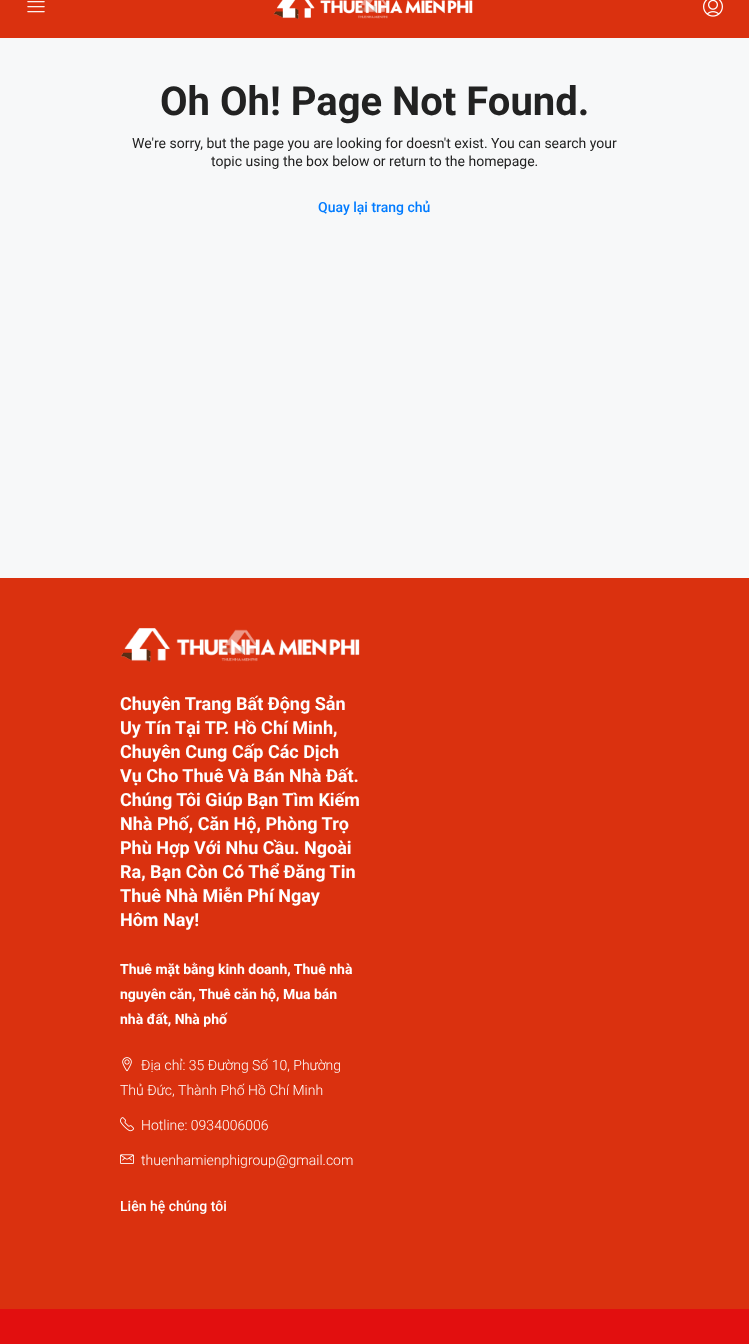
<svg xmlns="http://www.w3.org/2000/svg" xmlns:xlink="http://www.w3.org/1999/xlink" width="749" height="1344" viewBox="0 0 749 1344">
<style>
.cls-1{font:bold 40px Roboto;fill:#222222}
.cls-2{font:14px Roboto;fill:#222222}
.cls-3{font:500 14px Roboto;fill:#007bff}
.cls-4{font:bold 18px Roboto;fill:#ffffff}
.cls-5{font:bold 14px Roboto;fill:#ffffff}
.cls-6{font:300 14px Roboto;fill:#ffffff}
.cls-7{font:500 14px Roboto;fill:#ffffff}
</style>
<rect width="100%" height="100%" fill="#f7f8f9"/>
<rect fill="#da310f" x="0" y="0" width="749" height="38"/>
<image xlink:href="image0.png" x="27" y="1" width="18" height="12"/>
<image xlink:href="image1.png" x="273" y="0" width="200" height="19"/>
<image xlink:href="image2.png" x="703" y="0" width="20" height="17"/>
<rect fill="#da310f" x="0" y="578" width="749" height="731"/>
<image xlink:href="image3.png" x="120" y="628" width="240" height="34"/>
<image xlink:href="image4.png" x="122" y="1057" width="10" height="15"/>
<image xlink:href="image5.png" x="120" y="1117" width="14" height="15"/>
<image xlink:href="image6.png" x="120" y="1154" width="14" height="10"/>
<rect fill="#e20f0f" x="0" y="1309" width="749" height="35"/>
<text class="cls-1" x="160" y="115">Oh Oh! Page Not Found.</text>
<text class="cls-2" x="132" y="148">We're sorry, but the page you are looking for doesn't exist. You can search your</text>
<text class="cls-2" x="211" y="166">topic using the box below or return to the homepage.</text>
<text class="cls-3" x="318" y="212">Quay lại trang chủ</text>
<text class="cls-4"><tspan x="120" y="710">Chuyên Trang Bất Động Sản</tspan><tspan x="120" y="734">Uy Tín Tại TP. Hồ Chí Minh,</tspan><tspan x="120" y="758">Chuyên Cung Cấp Các Dịch</tspan><tspan x="120" y="782">Vụ Cho Thuê Và Bán Nhà Đất.</tspan><tspan x="120" y="806">Chúng Tôi Giúp Bạn Tìm Kiếm</tspan><tspan x="120" y="830">Nhà Phố, Căn Hộ, Phòng Trọ</tspan><tspan x="120" y="854">Phù Hợp Với Nhu Cầu. Ngoài</tspan><tspan x="120" y="878">Ra, Bạn Còn Có Thể Đăng Tin</tspan><tspan x="120" y="902">Thuê Nhà Miễn Phí Ngay</tspan><tspan x="120" y="926">Hôm Nay!</tspan></text>
<text class="cls-5"><tspan x="120" y="974">Thuê mặt bằng kinh doanh, Thuê nhà</tspan><tspan x="120" y="999">nguyên căn, Thuê căn hộ, Mua bán</tspan><tspan x="120" y="1024">nhà đất, Nhà phố</tspan></text>
<text class="cls-6" x="141" y="1070">Địa chỉ: 35 Đường Số 10, Phường</text>
<text class="cls-6" x="120" y="1095">Thủ Đức, Thành Phố Hồ Chí Minh</text>
<text class="cls-6" x="141" y="1130">Hotline: 0934006006</text>
<text class="cls-6" x="141" y="1165">thuenhamienphigroup@gmail.com</text>
<text class="cls-7" x="120" y="1211">Liên hệ chúng tôi</text>
</svg>
